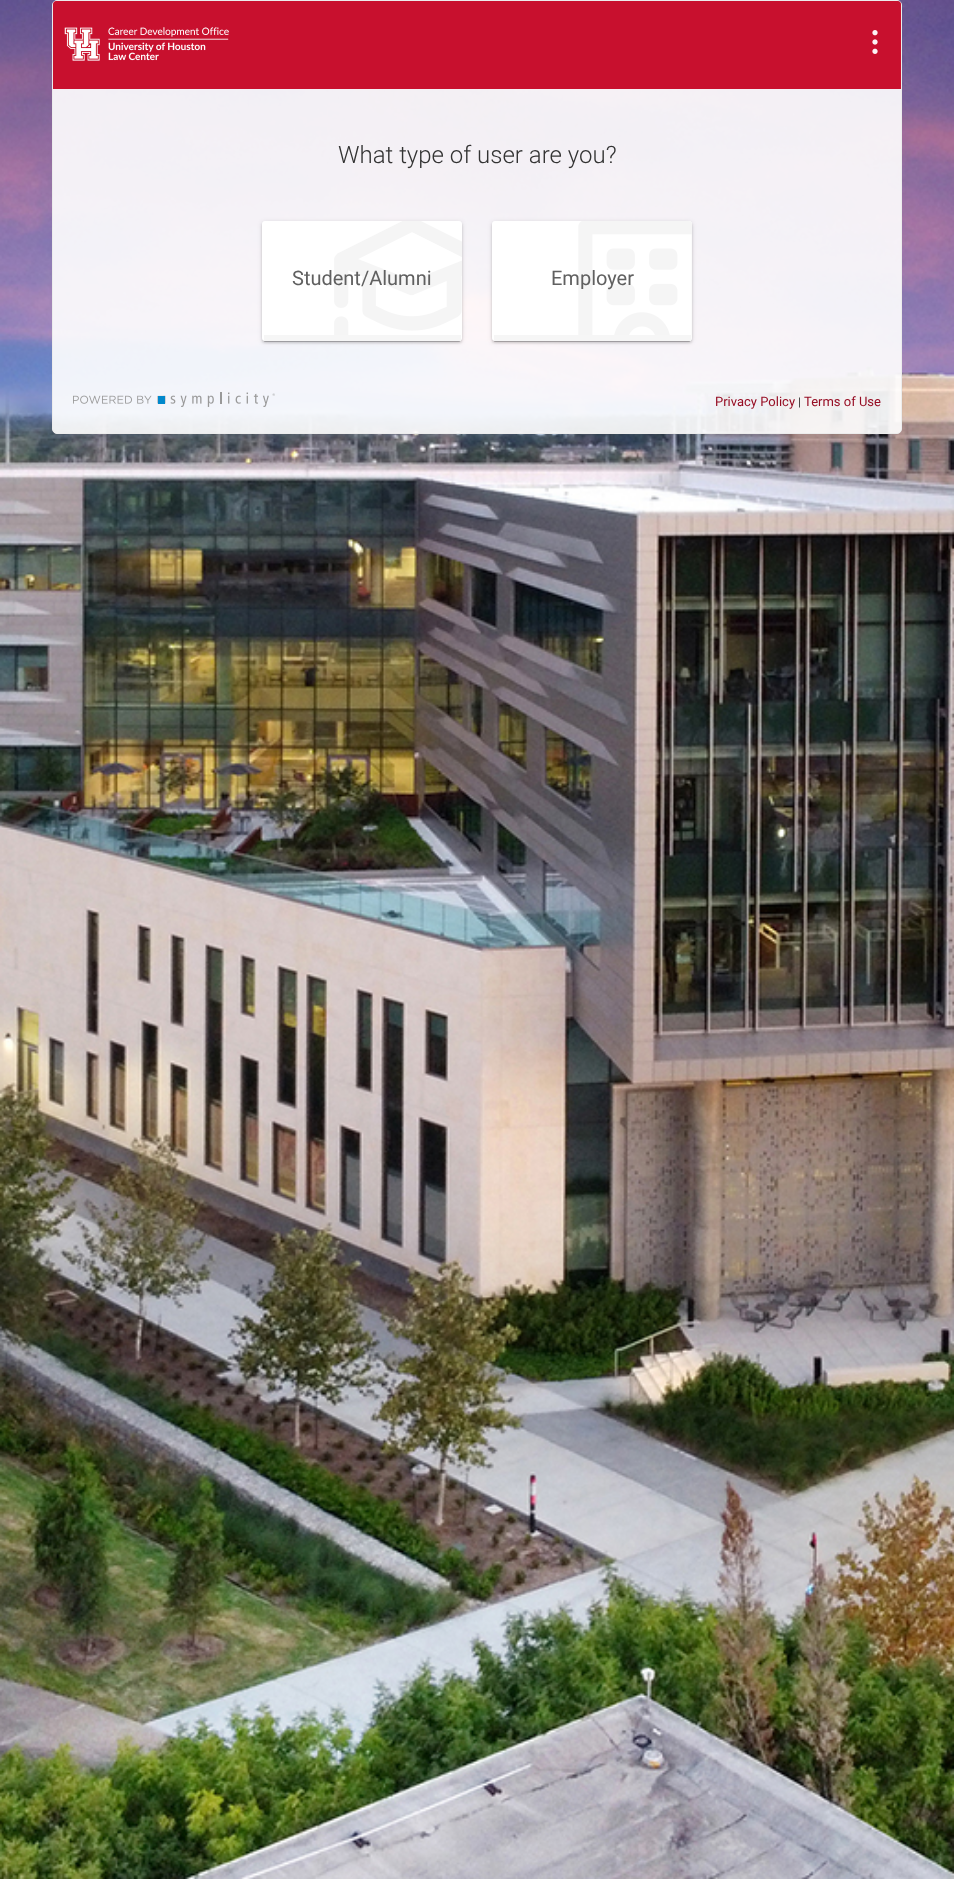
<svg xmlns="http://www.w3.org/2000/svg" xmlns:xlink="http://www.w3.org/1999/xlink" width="954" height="1879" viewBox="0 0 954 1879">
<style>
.cls-1{font:300 24px Roboto;fill:#333333}
.cls-2{font:20px Roboto;fill:#606060}
.cls-3{font:13px Roboto;fill:#960c23}
.cls-4{font:12px Roboto;fill:#333333}
</style>
<rect width="100%" height="100%" fill="#ffffff"/>
<image xlink:href="image0.png" x="0" y="0" width="954" height="1879"/>
<rect fill="#ffffff" fill-opacity="0.9" stroke="#ececec" x="52.5" y="0.5" width="849" height="433" rx="4.5"/>
<path fill="#c8102e" d="M56 1H898C899.5 1 901 2.5 901 4V89H53V4C53 2.5 54.5 1 56 1Z"/>
<image xlink:href="image1.png" x="64" y="27" width="165" height="34"/>
<image xlink:href="image2.png" x="872" y="30" width="6" height="24"/>
<rect fill="#000000" fill-opacity="0.12" filter="blur(2.5px)" x="262" y="222" width="200" height="120" rx="3"/>
<rect fill="#000000" fill-opacity="0.2" filter="blur(0.5px)" x="264" y="226" width="196" height="116" rx="1"/>
<rect fill="#000000" fill-opacity="0.14" filter="blur(1px)" x="262" y="223" width="200" height="120" rx="3"/>
<rect fill="#ffffff" x="262" y="221" width="200" height="120" rx="3"/>
<image xlink:href="image3.png" x="334" y="221" width="128" height="114"/>
<rect fill="#f6f6f6" x="264" y="335" width="197" height="6"/>
<rect fill="#000000" fill-opacity="0.12" filter="blur(2.5px)" x="492" y="222" width="200" height="120" rx="3"/>
<rect fill="#000000" fill-opacity="0.2" filter="blur(0.5px)" x="494" y="226" width="196" height="116" rx="1"/>
<rect fill="#000000" fill-opacity="0.14" filter="blur(1px)" x="492" y="223" width="200" height="120" rx="3"/>
<rect fill="#ffffff" x="492" y="221" width="200" height="120" rx="3"/>
<image xlink:href="image4.png" x="578" y="221" width="114" height="119"/>
<rect fill="#f6f6f6" x="494" y="335" width="197" height="6"/>
<image xlink:href="image5.png" x="73" y="392" width="202" height="15"/>
<text class="cls-1" x="338" y="163">What type of user are you?</text>
<text class="cls-2" x="292" y="285">Student/Alumni</text>
<text class="cls-2" x="551" y="285">Employer</text>
<text class="cls-3" x="715" y="406">Privacy Policy</text>
<text class="cls-4" x="798" y="406">|</text>
<text class="cls-3" x="804" y="406">Terms of Use</text>
</svg>
